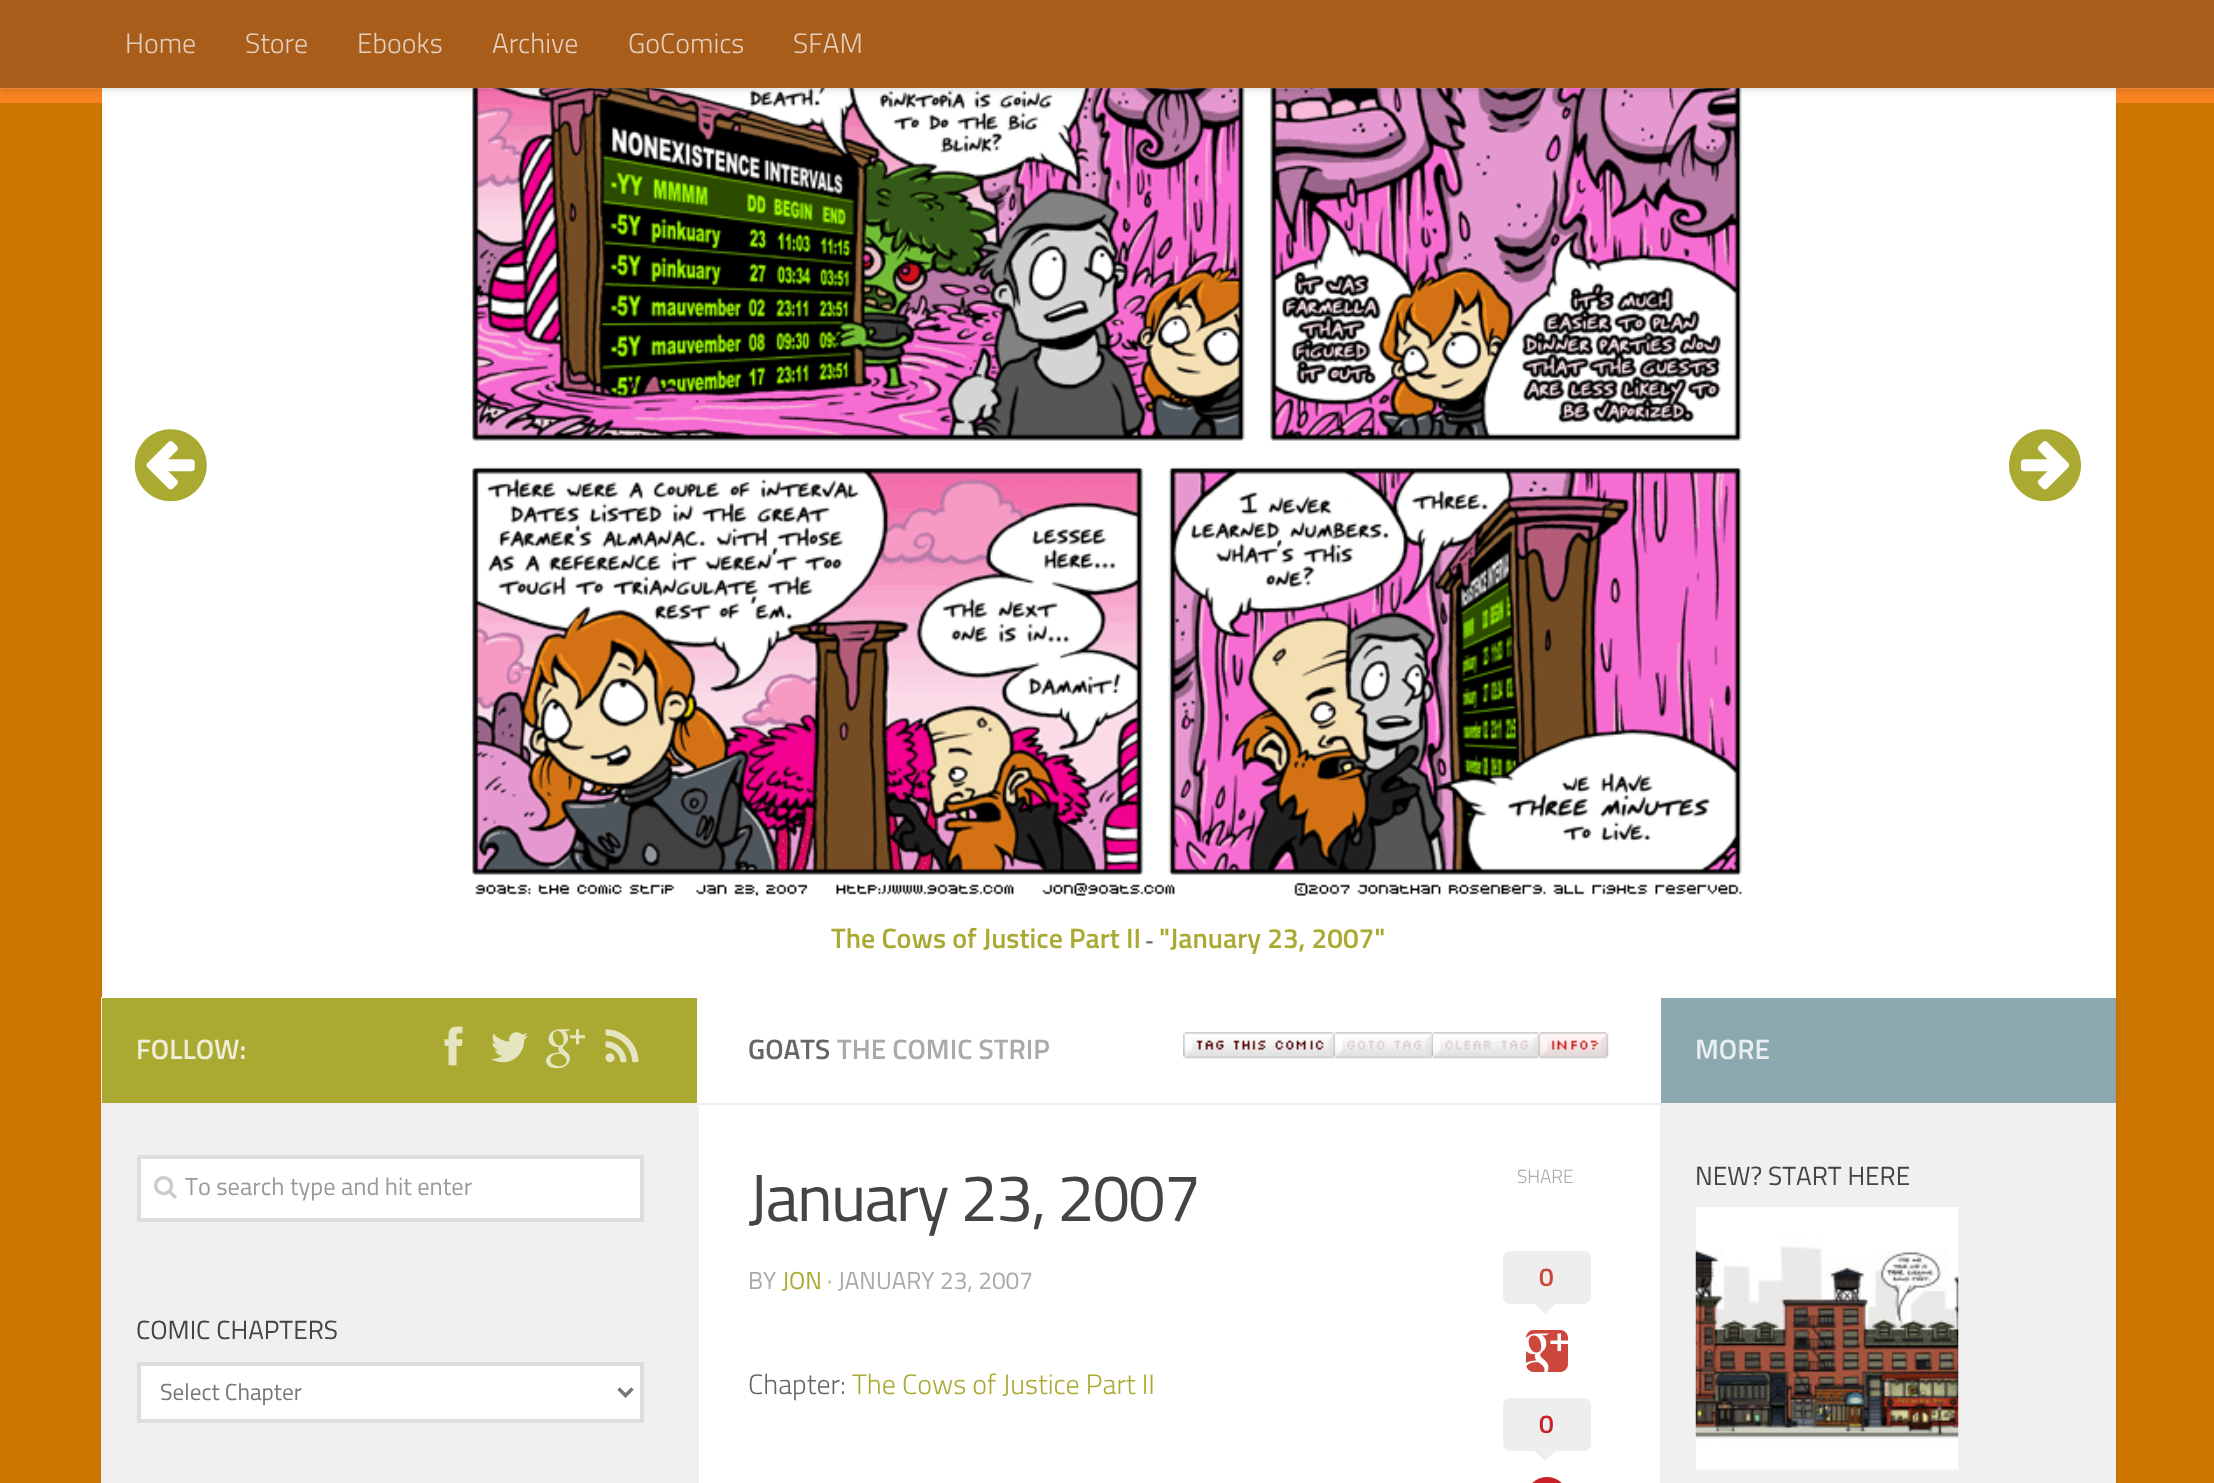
<svg xmlns="http://www.w3.org/2000/svg" xmlns:xlink="http://www.w3.org/1999/xlink" width="2214" height="1483" viewBox="0 0 2214 1483">
<style>
.cls-1{font:300 28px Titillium;fill:#e5cebb}
.cls-2{font:600 28px Titillium;fill:#aaaa33}
.cls-3{font:600 21px Titillium;fill:#666666}
.cls-4{font:600 28px Titillium;fill:#eeeed6}
.cls-5{font:24.5px Titillium;fill:#999999}
.cls-6{font:26.25px Titillium;fill:#444444}
.cls-7{font:23.25px Titillium;fill:#777777}
.cls-8{font:600 28px Titillium;fill:#666666}
.cls-9{font:600 28px Titillium;fill:#aaaaaa}
.cls-10{font:66.5px Titillium;letter-spacing:-1.75px;fill:#444444}
.cls-11{font:24.5px Titillium;fill:#aaaaaa}
.cls-12{font:24.5px Titillium;fill:#aaaa33}
.cls-13{font:300 28px Titillium;fill:#666666}
.cls-14{font:300 28px Titillium;fill:#aaaa33}
.cls-15{font:300 19px Titillium;fill:#aaaaaa}
.cls-16{font:600 26.25px Titillium;fill:#cd483c}
.cls-17{font:600 26.25px Titillium;fill:#ca2128}
.cls-18{font:600 28px Titillium;fill:#e8eeef}
</style>
<rect width="100%" height="100%" fill="#cc7600"/>
<rect fill="#000000" fill-opacity="0.1" filter="blur(1px)" x="102" y="0" width="2014" height="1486"/>
<rect fill="#f68220" x="0" y="88" width="2214" height="15"/>
<rect fill="#f0f0f0" x="101" y="997" width="598" height="486"/>
<rect fill="#ffffff" x="102" y="88" width="2014" height="910"/>
<image xlink:href="image1.png" x="472" y="88" width="1270" height="808"/>
<path fill="#ffffff" fill-opacity="0.15" d="M0 88V89H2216V2V88Z"/>
<rect fill="#000000" fill-opacity="0.2" filter="blur(4.5px)" x="0" y="0" width="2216" height="88"/>
<rect fill="#a85d1b" x="0" y="0" width="2214" height="88"/>
<rect fill="#ffffff" x="699" y="1105" width="961" height="378"/>
<image xlink:href="image0.png" x="134" y="429" width="73" height="73"/>
<image xlink:href="image2.png" x="2009" y="429" width="72" height="73"/>
<rect fill="#f0f0f0" x="1660" y="1103" width="456" height="380"/>
<rect fill="#aaaa33" x="102" y="998" width="595" height="105"/>
<image xlink:href="image3.png" x="444" y="1026" width="19" height="40"/>
<image xlink:href="image4.png" x="491" y="1032" width="37" height="31"/>
<image xlink:href="image5.png" x="546" y="1029" width="39" height="40"/>
<image xlink:href="image6.png" x="605" y="1029" width="34" height="34"/>
<rect fill="#ffffff" stroke="#dddddd" stroke-width="4" x="139" y="1157" width="503" height="63"/>
<image xlink:href="image7.png" x="154" y="1176" width="23" height="23"/>
<rect fill="#ffffff" stroke="#dddddd" stroke-width="4" x="139" y="1364" width="503" height="57"/>
<path fill="none" stroke="#777777" stroke-width="3.5" d="M618.5 1388.5L625.5 1395.5L632.5 1388.5"/>
<rect fill="#ffffff" x="697" y="998" width="964" height="105"/>
<rect fill="#eeeeee" x="697" y="1103" width="964" height="2"/>
<image xlink:href="image8.png" x="1183" y="1032" width="153" height="27"/>
<image xlink:href="image9.png" x="1335" y="1032" width="99" height="27"/>
<image xlink:href="image10.png" x="1433" y="1032" width="107" height="27"/>
<image xlink:href="image11.png" x="1540" y="1032" width="69" height="27"/>
<rect fill="#eeeeee" x="1503" y="1251" width="88" height="53" rx="7"/>
<path fill="#eeeeee" d="M1535 1304H1556L1545 1314Z"/>
<image xlink:href="image12.png" x="1526" y="1330" width="42" height="42"/>
<rect fill="#eeeeee" x="1503" y="1398" width="88" height="53" rx="7"/>
<path fill="#eeeeee" d="M1535 1451H1556L1545 1461Z"/>
<image xlink:href="image13.png" x="1532" y="1477" width="30" height="6"/>
<rect fill="#8aa8ad" x="1661" y="998" width="455" height="105"/>
<image xlink:href="image14.png" x="1695" y="1207" width="264" height="263"/>
<text class="cls-1" x="125" y="53">Home</text>
<text class="cls-1" x="245" y="53">Store</text>
<text class="cls-1" x="357" y="53">Ebooks</text>
<text class="cls-1" x="492" y="53">Archive</text>
<text class="cls-1" x="628" y="53">GoComics</text>
<text class="cls-1" x="793" y="53">SFAM</text>
<text class="cls-2" x="831" y="948">The Cows of Justice Part II</text>
<text class="cls-3" x="1145" y="948">-</text>
<text class="cls-2" x="1159" y="948">"January 23, 2007"</text>
<text class="cls-4" x="136" y="1059">FOLLOW:</text>
<text class="cls-5" x="185" y="1195">To search type and hit enter</text>
<text class="cls-6" x="136" y="1339">COMIC CHAPTERS</text>
<text class="cls-7" x="160" y="1400">Select Chapter</text>
<text class="cls-8" x="748" y="1059">GOATS</text>
<text class="cls-9" x="837" y="1059">THE COMIC STRIP</text>
<text class="cls-10" x="748" y="1221">January 23, 2007</text>
<text class="cls-11" x="748" y="1289">BY</text>
<text class="cls-12" x="782" y="1289">JON</text>
<text class="cls-11" x="827" y="1289">· JANUARY 23, 2007</text>
<text class="cls-13" x="748" y="1394">Chapter:</text>
<text class="cls-14" x="852" y="1394">The Cows of Justice Part II</text>
<text class="cls-15" x="1517" y="1183">SHARE</text>
<text class="cls-16" x="1539" y="1286">0</text>
<text class="cls-17" x="1539" y="1433">0</text>
<text class="cls-18" x="1695" y="1059">MORE</text>
<text class="cls-6" x="1695" y="1185">NEW? START HERE</text>
</svg>
